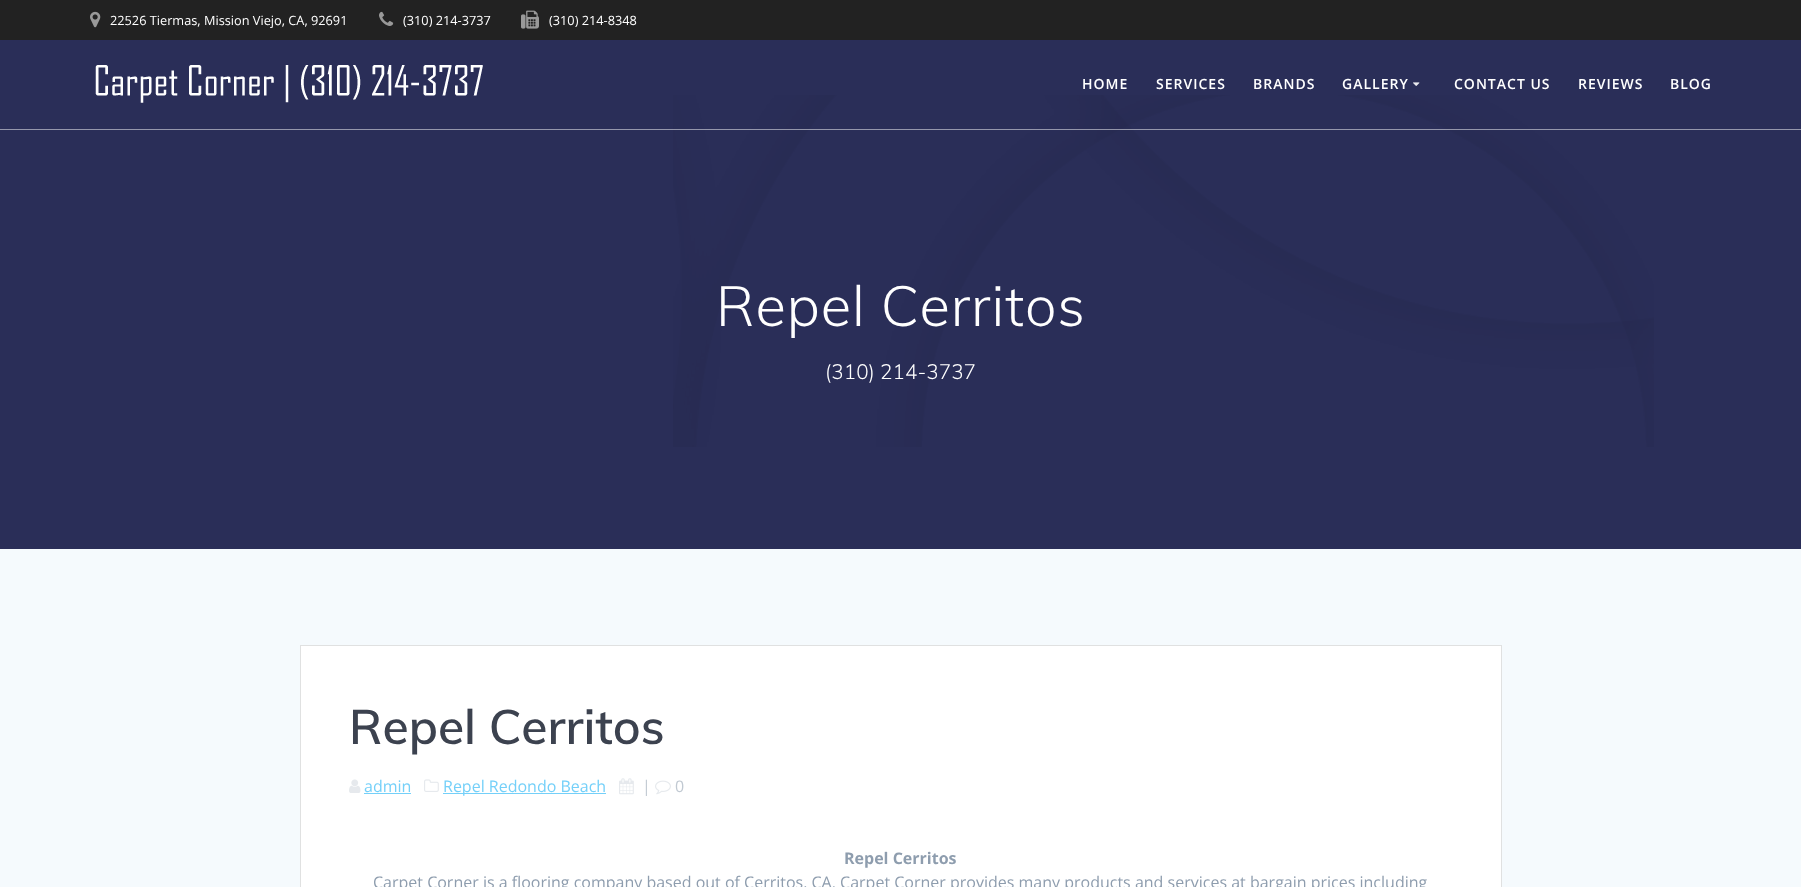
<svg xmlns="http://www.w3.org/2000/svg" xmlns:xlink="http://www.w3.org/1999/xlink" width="1801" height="887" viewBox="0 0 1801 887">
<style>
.cls-1{font:12.75px Open Sans;fill:#ffffff}
.cls-2{font:600 14px Open Sans;letter-spacing:1px;fill:#ffffff}
.cls-3{font:300 56px Muli;letter-spacing:0.9px;fill:#ffffff}
.cls-4{font:300 20.75px Muli;fill:#ffffff}
.cls-5{font:600 48px Muli;fill:#3c424f}
.cls-6{font:16px Open Sans;fill:#74d0f9}
.cls-7{font:16px Open Sans;fill:#c1c9d2}
.cls-8{font:bold 16px Open Sans;fill:#8e9dae}
.cls-9{font:16px Open Sans;fill:#8e9dae}
</style>
<rect width="100%" height="100%" fill="#2a2e58"/>
<rect fill="#222222" x="0" y="0" width="1801" height="40"/>
<image xlink:href="image0.png" x="90" y="11" width="11" height="17"/>
<image xlink:href="image1.png" x="379" y="11" width="15" height="15"/>
<image xlink:href="image2.png" x="521" y="10" width="18" height="19"/>
<image xlink:href="image5.png" x="673" y="95" width="981" height="352"/>
<rect fill="#ffffff" fill-opacity="0.5" x="0" y="129" width="1801" height="1"/>
<image xlink:href="image3.png" x="95" y="65" width="388" height="38"/>
<image xlink:href="image4.png" x="1413" y="82" width="7" height="4"/>
<rect fill="#f5fafd" x="0" y="549" width="1801" height="338"/>
<rect fill="#ffffff" stroke="#e0e1e1" x="300.5" y="645.5" width="1201" height="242"/>
<image xlink:href="image6.png" x="349" y="779" width="12" height="14"/>
<rect fill="#74d0f9" x="364" y="793" width="47" height="1"/>
<image xlink:href="image7.png" x="424" y="779" width="15" height="13"/>
<rect fill="#74d0f9" x="443" y="793" width="163" height="1"/>
<image xlink:href="image8.png" x="619" y="778" width="15" height="17"/>
<image xlink:href="image9.png" x="655" y="780" width="16" height="15"/>
<text class="cls-1" x="110" y="25">22526 Tiermas, Mission Viejo, CA, 92691</text>
<text class="cls-1" x="403" y="25">(310) 214-3737</text>
<text class="cls-1" x="549" y="25">(310) 214-8348</text>
<text class="cls-2" x="1082" y="89">HOME</text>
<text class="cls-2" x="1156" y="89">SERVICES</text>
<text class="cls-2" x="1253" y="89">BRANDS</text>
<text class="cls-2" x="1342" y="89">GALLERY</text>
<text class="cls-2" x="1454" y="89">CONTACT US</text>
<text class="cls-2" x="1578" y="89">REVIEWS</text>
<text class="cls-2" x="1670" y="89">BLOG</text>
<text class="cls-3" x="716" y="326">Repel Cerritos</text>
<text class="cls-4" x="825" y="379">(310) 214-3737</text>
<text class="cls-5" x="349" y="744">Repel Cerritos</text>
<text class="cls-6" x="364" y="792">admin</text>
<text class="cls-6" x="443" y="792">Repel Redondo Beach</text>
<text class="cls-7" x="642" y="792">|</text>
<text class="cls-7" x="675" y="792">0</text>
<text class="cls-8" x="844" y="864">Repel Cerritos</text>
<text class="cls-9" x="373" y="888">Carpet Corner is a flooring company based out of Cerritos, CA. Carpet Corner provides many products and services at bargain prices including</text>
</svg>
